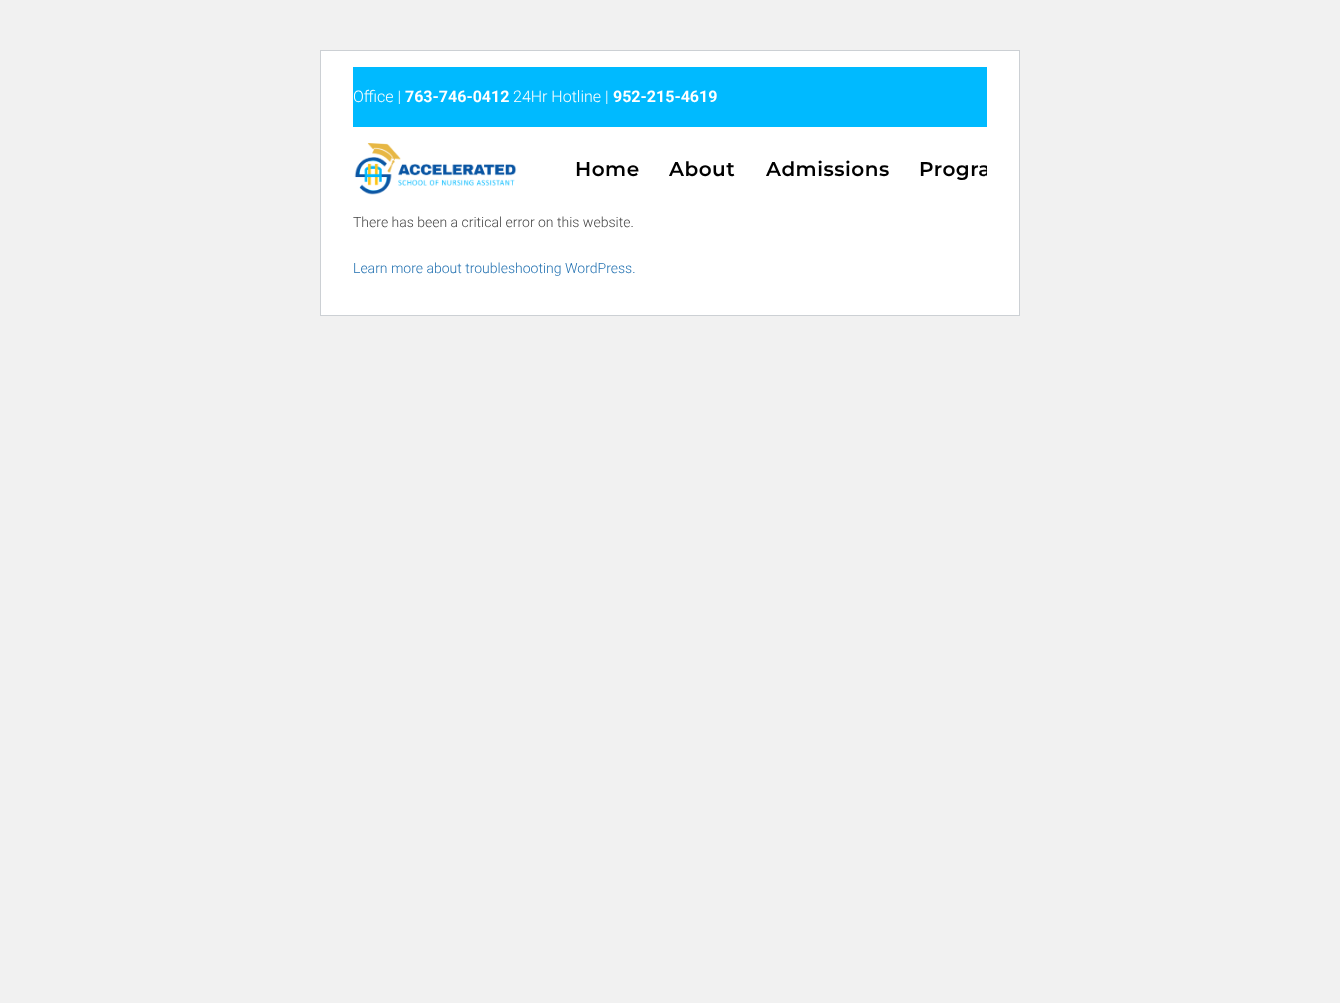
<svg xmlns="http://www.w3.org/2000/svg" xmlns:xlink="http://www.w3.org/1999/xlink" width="1340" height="1003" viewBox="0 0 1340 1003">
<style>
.cls-1{font:300 16px Roboto;fill:#ffffff}
.cls-2{font:bold 16px Roboto;fill:#ffffff}
.cls-3{font:600 20px Montserrat;letter-spacing:0.5px;fill:#000000}
.cls-4{font:300 14px Roboto;fill:#444444}
.cls-5{font:300 14px Roboto;fill:#2271b1}
</style>
<defs>
<clipPath id="clip1"><rect x="353" y="67" width="634" height="232"/></clipPath>
</defs>
<rect width="100%" height="100%" fill="#f1f1f1"/>
<rect fill="#ffffff" stroke="#ccd0d4" x="320.5" y="50.5" width="699" height="265"/>
<rect fill="#00baff" x="353" y="67" width="634" height="60"/>
<image xlink:href="image0.png" x="354" y="143" width="163" height="52"/>
<text class="cls-1" x="353" y="102">Office |</text>
<text class="cls-2" x="405" y="102">763-746-0412</text>
<text class="cls-1" x="513" y="102">24Hr Hotline |</text>
<text class="cls-2" x="613" y="102">952-215-4619</text>
<text class="cls-3" x="575" y="176">Home</text>
<text class="cls-3" x="669" y="176">About</text>
<text class="cls-3" x="766" y="176">Admissions</text>
<g clip-path="url(#clip1)">
<text class="cls-3" x="919" y="176">Progra</text>
</g>
<text class="cls-4" x="353" y="227">There has been a critical error on this website.</text>
<text class="cls-5" x="353" y="273">Learn more about troubleshooting WordPress.</text>
</svg>
